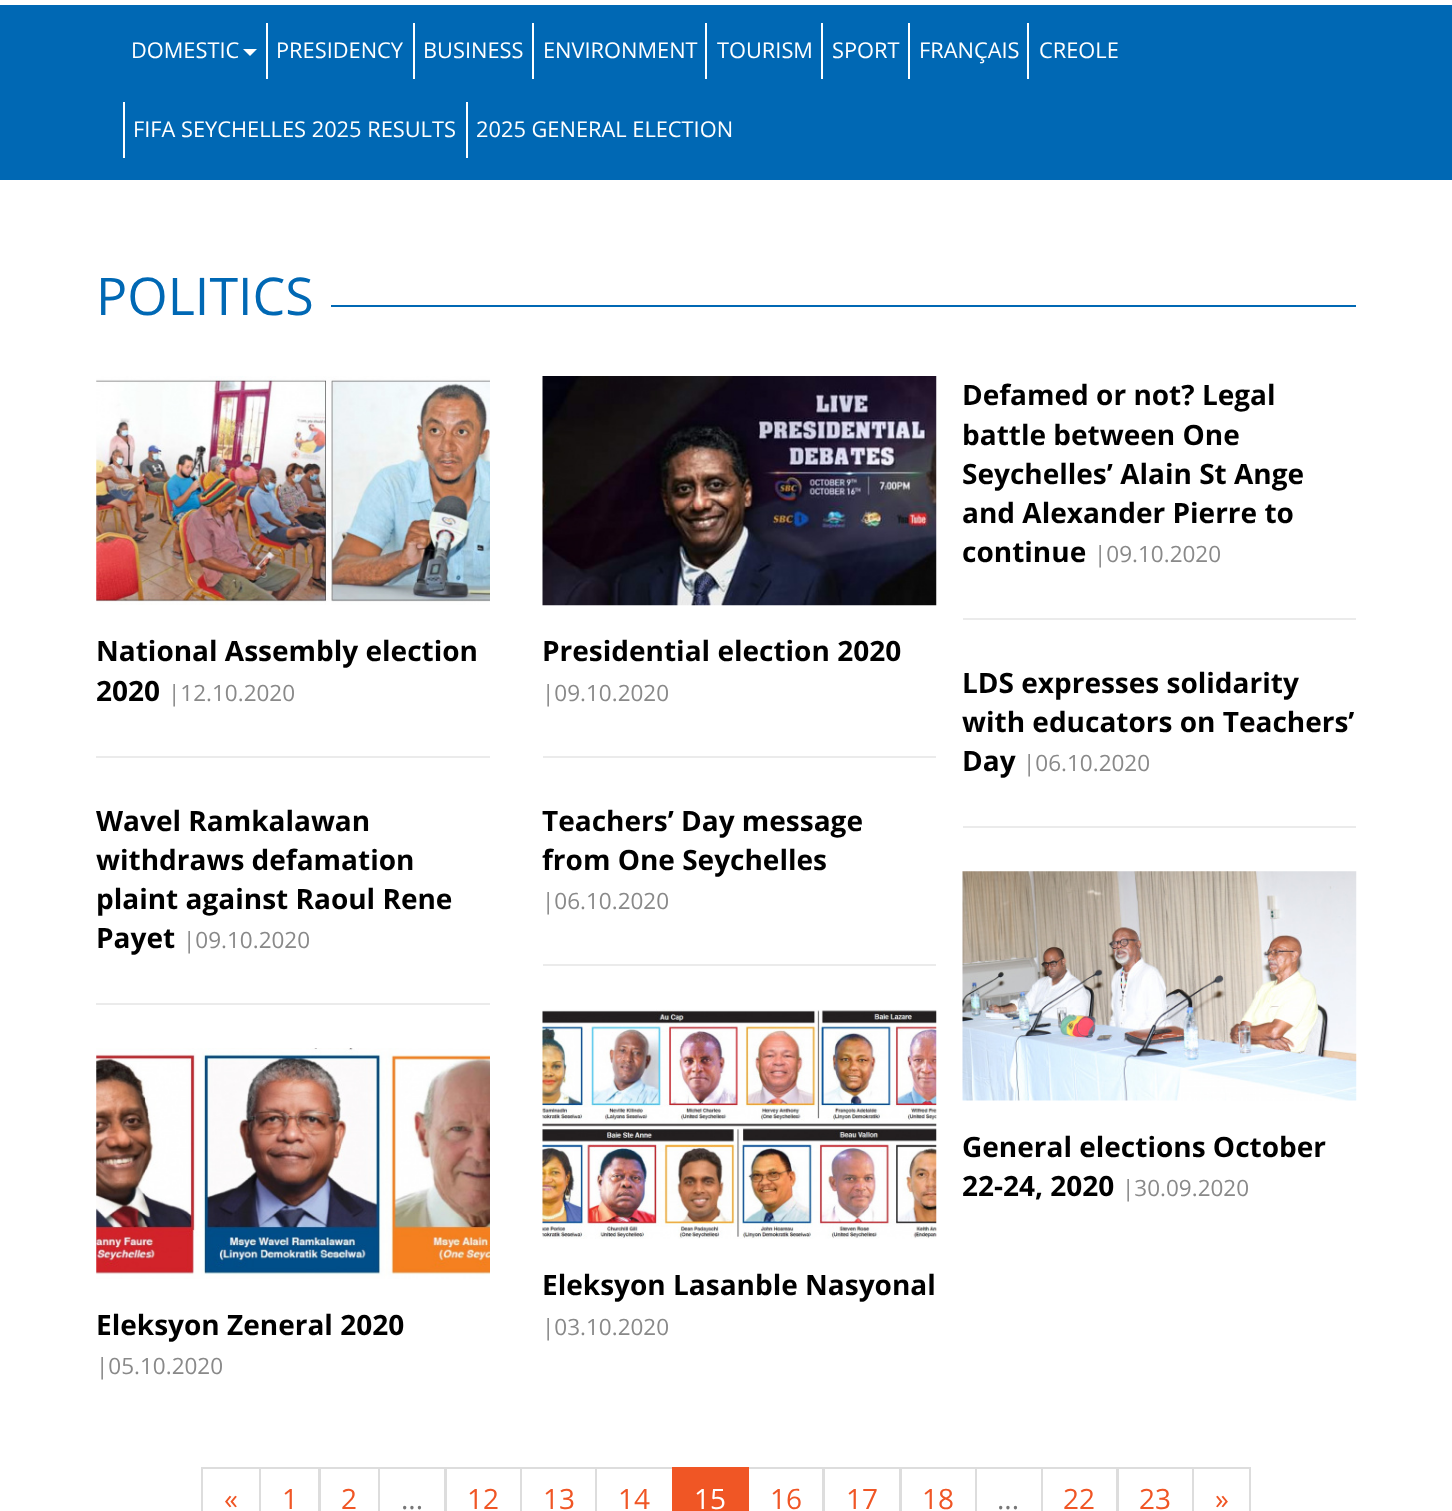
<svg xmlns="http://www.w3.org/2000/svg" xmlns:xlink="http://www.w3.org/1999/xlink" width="1452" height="1511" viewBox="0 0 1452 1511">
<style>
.cls-1{font:21.8px Open Sans;fill:#ffffff}
.cls-2{font:52px Open Sans;fill:#0068b4}
.cls-3{font:bold 28px Open Sans;fill:#000000}
.cls-4{font:22.5px Open Sans;fill:#898989}
.cls-5{font:28px Open Sans;fill:#f05625}
.cls-6{font:28px Open Sans;fill:#777777}
.cls-7{font:28px Open Sans;fill:#ffffff}
</style>
<rect width="100%" height="100%" fill="#ffffff"/>
<rect fill="#0068b4" x="0" y="5" width="1452" height="175"/>
<path fill="#ffffff" d="M243 49H257L250 56Z"/>
<rect fill="#ffffff" x="266" y="23" width="2" height="56"/>
<rect fill="#ffffff" x="413" y="23" width="2" height="56"/>
<rect fill="#ffffff" x="532" y="23" width="2" height="56"/>
<rect fill="#ffffff" x="705" y="23" width="2" height="56"/>
<rect fill="#ffffff" x="821" y="23" width="2" height="56"/>
<rect fill="#ffffff" x="908" y="23" width="2" height="56"/>
<rect fill="#ffffff" x="1027" y="23" width="2" height="56"/>
<rect fill="#ffffff" x="123" y="102" width="2" height="56"/>
<rect fill="#ffffff" x="466" y="102" width="2" height="56"/>
<rect fill="#0068b4" x="331" y="305" width="1025" height="2"/>
<image xlink:href="image0.png" x="96" y="376" width="394" height="229"/>
<rect fill="#ebebeb" x="96" y="756" width="394" height="2"/>
<rect fill="#ebebeb" x="96" y="1003" width="394" height="2"/>
<image xlink:href="image1.png" x="96" y="1048" width="394" height="231"/>
<image xlink:href="image2.png" x="542" y="376" width="395" height="230"/>
<rect fill="#ebebeb" x="543" y="756" width="393" height="2"/>
<rect fill="#ebebeb" x="543" y="964" width="393" height="2"/>
<image xlink:href="image3.png" x="542" y="1009" width="395" height="230"/>
<rect fill="#ebebeb" x="963" y="618" width="393" height="2"/>
<rect fill="#ebebeb" x="963" y="826" width="393" height="2"/>
<image xlink:href="image4.png" x="962" y="871" width="395" height="230"/>
<rect fill="none" stroke="#dddddd" stroke-width="2" x="202" y="1468" width="58" height="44"/>
<rect fill="none" stroke="#dddddd" stroke-width="2" x="260" y="1468" width="59" height="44"/>
<rect fill="none" stroke="#dddddd" stroke-width="2" x="320" y="1468" width="59" height="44"/>
<rect fill="none" stroke="#dddddd" stroke-width="2" x="379" y="1468" width="66" height="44"/>
<rect fill="none" stroke="#dddddd" stroke-width="2" x="446" y="1468" width="75" height="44"/>
<rect fill="none" stroke="#dddddd" stroke-width="2" x="521" y="1468" width="75" height="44"/>
<rect fill="none" stroke="#dddddd" stroke-width="2" x="596" y="1468" width="77" height="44"/>
<rect fill="none" stroke="#dddddd" stroke-width="2" x="748" y="1468" width="75" height="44"/>
<rect fill="#f05625" x="672" y="1467" width="77" height="44"/>
<rect fill="none" stroke="#dddddd" stroke-width="2" x="824" y="1468" width="76" height="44"/>
<rect fill="none" stroke="#dddddd" stroke-width="2" x="901" y="1468" width="75" height="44"/>
<rect fill="none" stroke="#dddddd" stroke-width="2" x="976" y="1468" width="66" height="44"/>
<rect fill="none" stroke="#dddddd" stroke-width="2" x="1042" y="1468" width="75" height="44"/>
<rect fill="none" stroke="#dddddd" stroke-width="2" x="1118" y="1468" width="75" height="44"/>
<rect fill="none" stroke="#dddddd" stroke-width="2" x="1193" y="1468" width="57" height="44"/>
<text class="cls-1" x="131" y="58">DOMESTIC</text>
<text class="cls-1" x="276" y="58">PRESIDENCY</text>
<text class="cls-1" x="423" y="58">BUSINESS</text>
<text class="cls-1" x="543" y="58">ENVIRONMENT</text>
<text class="cls-1" x="717" y="58">TOURISM</text>
<text class="cls-1" x="832" y="58">SPORT</text>
<text class="cls-1" x="919" y="58">FRANÇAIS</text>
<text class="cls-1" x="1039" y="58">CREOLE</text>
<text class="cls-1" x="133" y="137">FIFA SEYCHELLES 2025 RESULTS</text>
<text class="cls-1" x="476" y="137">2025 GENERAL ELECTION</text>
<text class="cls-2" x="96" y="315">POLITICS</text>
<text class="cls-3"><tspan x="96" y="661">National Assembly election</tspan><tspan x="96" y="701">2020</tspan></text>
<text class="cls-4" x="168" y="701">|12.10.2020</text>
<text class="cls-3"><tspan x="96" y="831">Wavel Ramkalawan</tspan><tspan x="96" y="870">withdraws defamation</tspan><tspan x="96" y="909">plaint against Raoul Rene</tspan><tspan x="96" y="948">Payet</tspan></text>
<text class="cls-4" x="183" y="948">|09.10.2020</text>
<text class="cls-3" x="96" y="1335">Eleksyon Zeneral 2020</text>
<text class="cls-4" x="96" y="1374">|05.10.2020</text>
<text class="cls-3" x="542" y="661">Presidential election 2020</text>
<text class="cls-4" x="542" y="701">|09.10.2020</text>
<text class="cls-3"><tspan x="542" y="831">Teachers’ Day message</tspan><tspan x="542" y="870">from One Seychelles</tspan></text>
<text class="cls-4" x="542" y="909">|06.10.2020</text>
<text class="cls-3" x="542" y="1295">Eleksyon Lasanble Nasyonal</text>
<text class="cls-4" x="542" y="1335">|03.10.2020</text>
<text class="cls-3"><tspan x="962" y="405">Defamed or not? Legal</tspan><tspan x="962" y="445">battle between One</tspan><tspan x="962" y="484">Seychelles’ Alain St Ange</tspan><tspan x="962" y="523">and Alexander Pierre to</tspan><tspan x="962" y="562">continue</tspan></text>
<text class="cls-4" x="1094" y="562">|09.10.2020</text>
<text class="cls-3"><tspan x="962" y="693">LDS expresses solidarity</tspan><tspan x="962" y="732">with educators on Teachers’</tspan><tspan x="962" y="771">Day</tspan></text>
<text class="cls-4" x="1023" y="771">|06.10.2020</text>
<text class="cls-3"><tspan x="962" y="1157">General elections October</tspan><tspan x="962" y="1196">22-24, 2020</tspan></text>
<text class="cls-4" x="1122" y="1196">|30.09.2020</text>
<text class="cls-5" x="224" y="1509">«</text>
<text class="cls-5" x="282" y="1509">1</text>
<text class="cls-5" x="341" y="1509">2</text>
<text class="cls-6" x="401" y="1509">...</text>
<text class="cls-5" x="467" y="1509">12</text>
<text class="cls-5" x="543" y="1509">13</text>
<text class="cls-5" x="618" y="1509">14</text>
<text class="cls-7" x="694" y="1509">15</text>
<text class="cls-5" x="770" y="1509">16</text>
<text class="cls-5" x="846" y="1509">17</text>
<text class="cls-5" x="922" y="1509">18</text>
<text class="cls-6" x="997" y="1509">...</text>
<text class="cls-5" x="1063" y="1509">22</text>
<text class="cls-5" x="1139" y="1509">23</text>
<text class="cls-5" x="1215" y="1509">»</text>
</svg>
